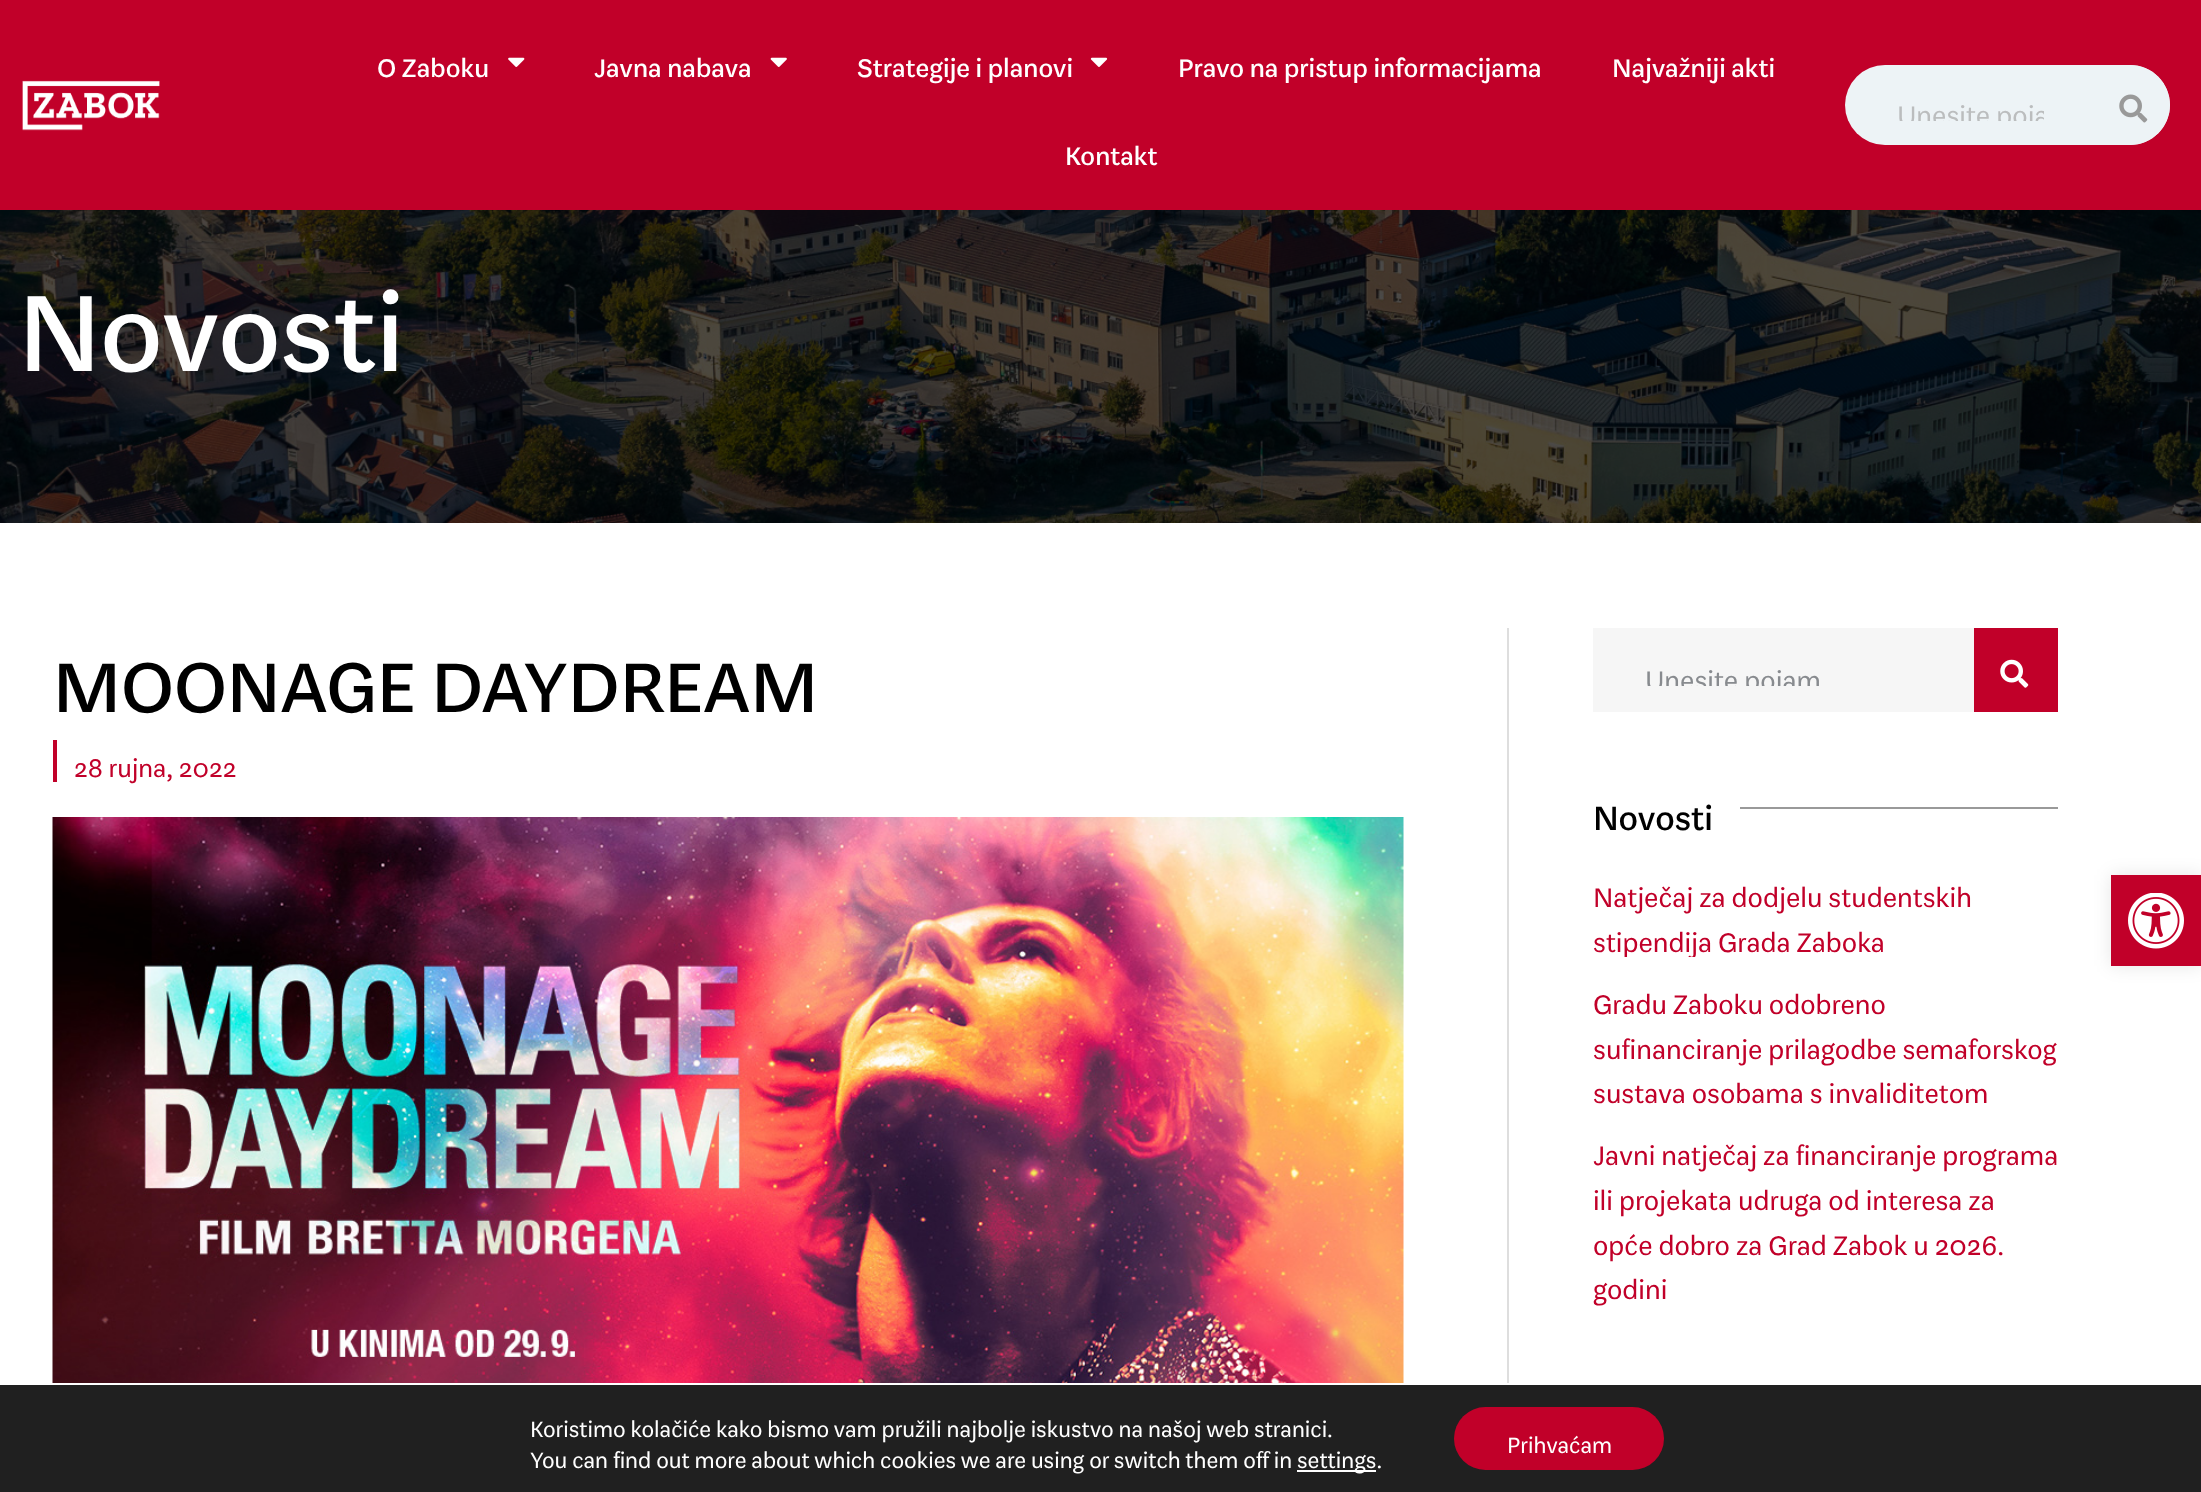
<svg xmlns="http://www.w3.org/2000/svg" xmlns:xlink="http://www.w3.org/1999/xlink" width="2201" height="1492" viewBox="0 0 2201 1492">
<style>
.cls-1{font:500 28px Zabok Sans;fill:#ffffff}
.cls-2{font:29.75px Zabok Sans;fill:#bbbdbe}
.cls-3{font:500 119px Zabok Sans;fill:#ffffff}
.cls-4{font:500 77px Zabok Sans;fill:#000000}
.cls-5{font:28px Zabok Sans;fill:#c10029}
.cls-6{font:29.75px Zabok Sans;fill:#888b8f}
.cls-7{font:500 37px Zabok Sans;fill:#000000}
.cls-8{font:29.75px Zabok Sans;fill:#c10029}
.cls-9{font:24.5px Zabok Sans;fill:#ffffff}
</style>
<defs>
<clipPath id="clip1"><rect x="1897" y="95" width="147" height="26"/></clipPath>
<clipPath id="clip2"><rect x="1645" y="660" width="270" height="26"/></clipPath>
<clipPath id="clip3"><rect x="1593" y="868" width="465" height="89"/></clipPath>
</defs>
<rect width="100%" height="100%" fill="#ffffff"/>
<rect fill="#c10029" x="0" y="0" width="2201" height="210"/>
<image xlink:href="image0.png" x="22" y="80" width="138" height="51"/>
<image xlink:href="image1.png" x="508" y="57" width="17" height="10"/>
<image xlink:href="image2.png" x="770" y="57" width="17" height="10"/>
<image xlink:href="image3.png" x="1090" y="57" width="18" height="10"/>
<rect fill="#edf3f6" x="1845" y="65" width="325" height="80" rx="40"/>
<path fill="#edf3f6" d="M2104 65H2130C2152 65 2170 83 2170 105C2170 127 2152 145 2130 145H2104Z"/>
<image xlink:href="image4.png" x="2119" y="94" width="29" height="29"/>
<image xlink:href="image5.png" x="0" y="210" width="2201" height="313"/>
<rect fill="#c10029" x="53" y="740" width="4" height="42"/>
<image xlink:href="image6.png" x="52" y="817" width="1352" height="566"/>
<rect fill="#dedede" x="1507" y="628" width="2" height="755"/>
<rect fill="#f6f6f6" x="1593" y="628" width="381" height="84"/>
<rect fill="#c10029" x="1974" y="628" width="84" height="84"/>
<image xlink:href="image7.png" x="2000" y="659" width="29" height="29"/>
<rect fill="#999999" x="1740" y="807" width="318" height="2"/>
<rect fill="#000000" fill-opacity="0.1" filter="blur(9px)" x="2111" y="875" width="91" height="91"/>
<rect fill="#c10029" x="2111" y="875" width="90" height="91"/>
<image xlink:href="image8.png" x="2128" y="893" width="56" height="56"/>
<rect fill="#202020" x="0" y="1385" width="2201" height="107"/>
<rect fill="#ffffff" x="1297" y="1470" width="79" height="2"/>
<rect fill="#c10029" x="1454" y="1407" width="210" height="63" rx="31.5"/>
<text class="cls-1" x="377" y="77">O Zaboku</text>
<text class="cls-1" x="594" y="77">Javna nabava</text>
<text class="cls-1" x="857" y="77">Strategije i planovi</text>
<text class="cls-1" x="1178" y="77">Pravo na pristup informacijama</text>
<text class="cls-1" x="1612" y="77">Najvažniji akti</text>
<text class="cls-1" x="1065" y="165">Kontakt</text>
<g clip-path="url(#clip1)">
<text class="cls-2" x="1897" y="125">Unesite poja</text>
</g>
<text class="cls-3" x="18" y="371">Novosti</text>
<text class="cls-4" x="53" y="712">MOONAGE DAYDREAM</text>
<text class="cls-5" x="74" y="777">28 rujna, 2022</text>
<g clip-path="url(#clip2)">
<text class="cls-6" x="1645" y="690">Unesite pojam</text>
</g>
<text class="cls-7" x="1593" y="830">Novosti</text>
<text class="cls-8" x="1593" y="907">Natječaj za dodjelu studentskih</text>
<g clip-path="url(#clip3)">
<text class="cls-8" x="1593" y="952">stipendija Grada Zaboka</text>
</g>
<text class="cls-8"><tspan x="1593" y="1014">Gradu Zaboku odobreno</tspan><tspan x="1593" y="1059">sufinanciranje prilagodbe semaforskog</tspan><tspan x="1593" y="1103">sustava osobama s invaliditetom</tspan></text>
<text class="cls-8"><tspan x="1593" y="1165">Javni natječaj za financiranje programa</tspan><tspan x="1593" y="1210">ili projekata udruga od interesa za</tspan><tspan x="1593" y="1255">opće dobro za Grad Zabok u 2026.</tspan><tspan x="1593" y="1299">godini</tspan></text>
<text class="cls-9"><tspan x="530" y="1437">Koristimo kolačiće kako bismo vam pružili najbolje iskustvo na našoj web stranici.</tspan><tspan x="530" y="1468">You can find out more about which cookies we are using or switch them off in</tspan></text>
<text class="cls-9" x="1297" y="1468">settings.</text>
<text class="cls-9" x="1507" y="1453">Prihvaćam</text>
</svg>
